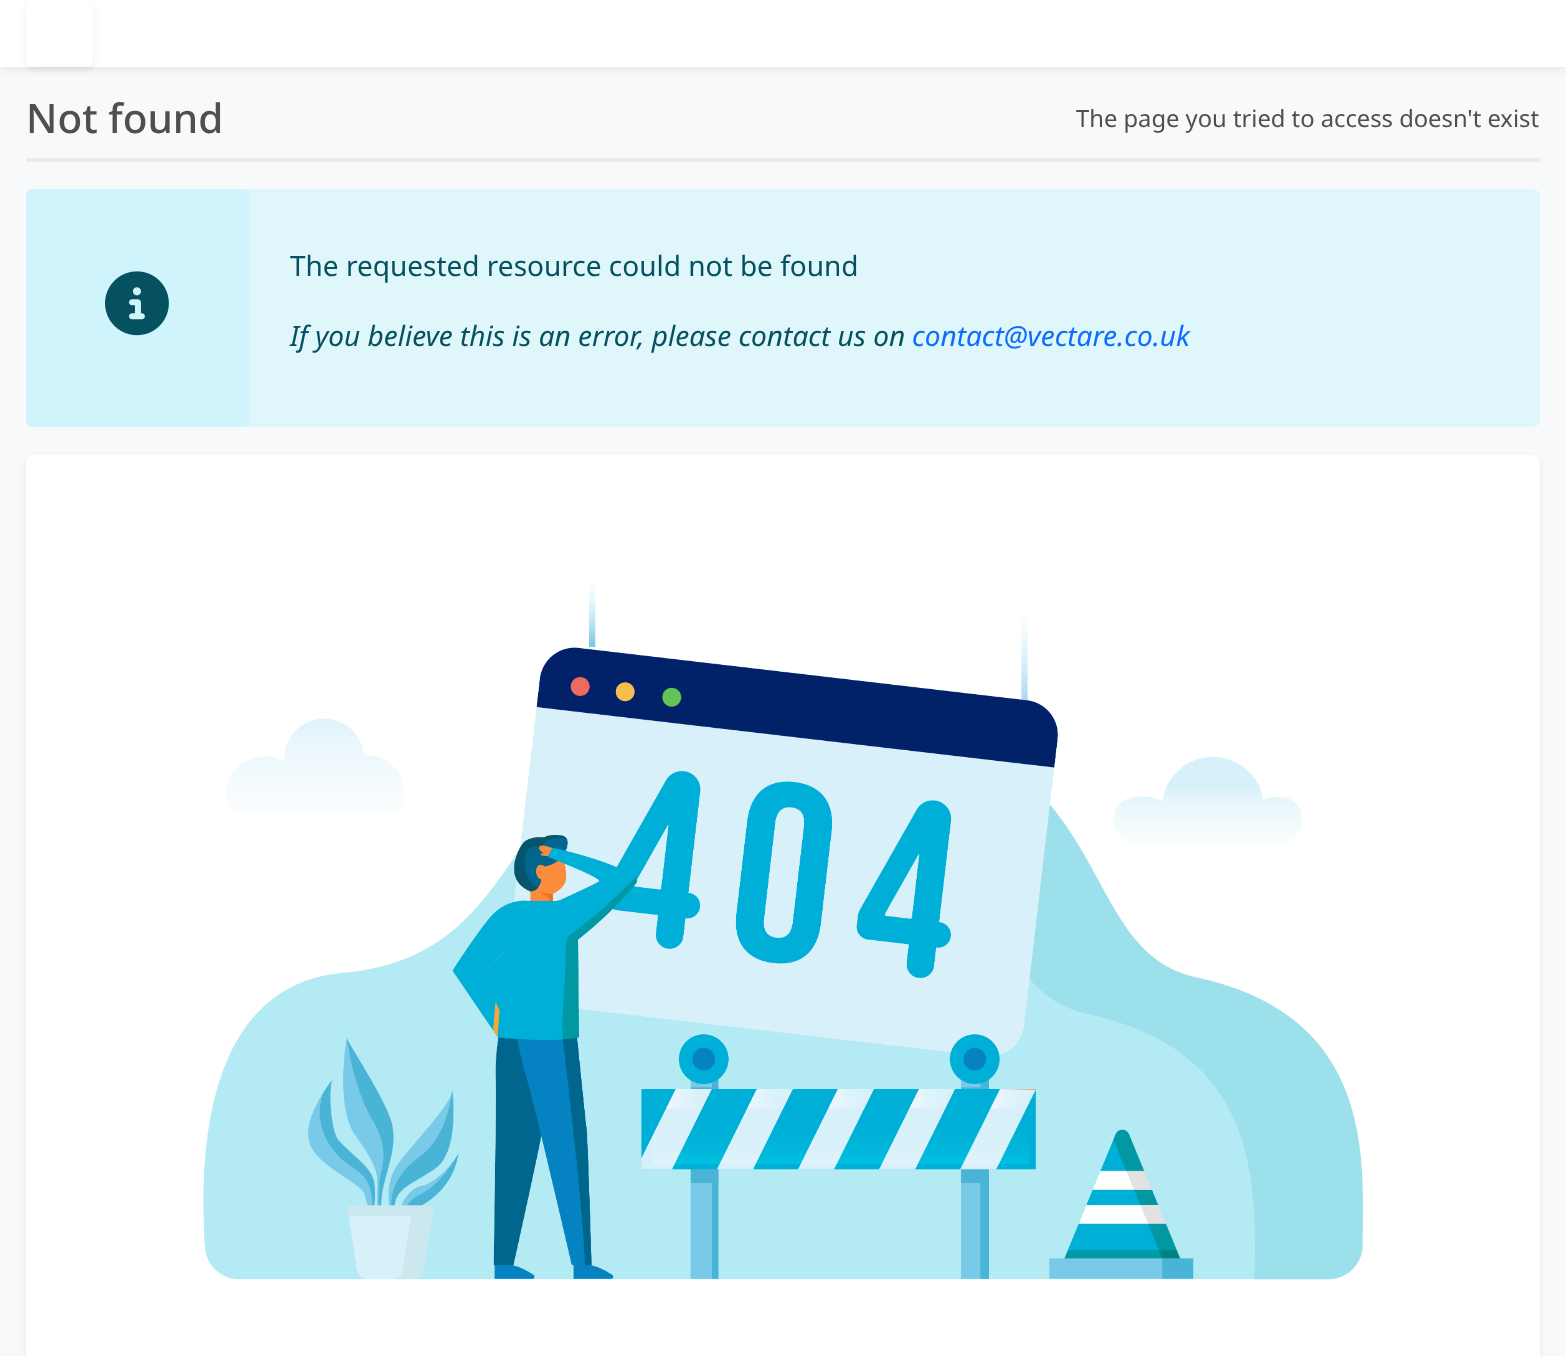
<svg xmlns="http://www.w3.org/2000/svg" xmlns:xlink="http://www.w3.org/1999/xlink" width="1566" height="1356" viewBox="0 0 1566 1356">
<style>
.cls-1{font:500 40.5px Noto Sans;fill:#4f4f4f}
.cls-2{font:23.75px Noto Sans;fill:#4f4f4f}
.cls-3{font:28px Noto Sans;fill:#055160}
.cls-4{font:italic 28px Noto Sans;fill:#055160}
.cls-5{font:italic 28px Noto Sans;fill:#0d6efd}
</style>
<defs>
<clipPath id="clip1"><path d="M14 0H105V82H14ZM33 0H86C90 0 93 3 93 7V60C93 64 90 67 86 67H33C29 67 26 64 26 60V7C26 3 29 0 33 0Z" clip-rule="evenodd"/></clipPath>
</defs>
<rect width="100%" height="100%" fill="#f8f9fa"/>
<rect fill="#000000" fill-opacity="0.07" filter="blur(3.5px)" x="0" y="4" width="1566" height="66"/>
<rect fill="#ffffff" x="0" y="0" width="1566" height="67"/>
<g clip-path="url(#clip1)">
<rect fill="#000000" fill-opacity="0.07" filter="blur(3.5px)" x="26" y="4" width="67" height="66" rx="7"/>
</g>
<rect fill="#ebebeb" x="26" y="158" width="1514" height="4"/>
<rect fill="#dff6fb" x="26" y="189" width="1514" height="238" rx="7"/>
<rect fill="#cff4fc" x="26" y="189" width="223" height="238" rx="7"/>
<image xlink:href="image0.png" x="105" y="271" width="64" height="65"/>
<rect fill="#000000" fill-opacity="0.07" filter="blur(3.5px)" x="26" y="459" width="1514" height="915" rx="7"/>
<rect fill="#ffffff" x="26" y="455" width="1514" height="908" rx="7"/>
<image xlink:href="image1.png" x="203" y="584" width="1161" height="696"/>
<text class="cls-1" x="26" y="133">Not found</text>
<text class="cls-2" x="1076" y="127">The page you tried to access doesn't exist</text>
<text class="cls-3" x="290" y="276">The requested resource could not be found</text>
<text class="cls-4" x="290" y="346">If you believe this is an error, please contact us on</text>
<text class="cls-5" x="912" y="346">contact@vectare.co.uk</text>
</svg>
